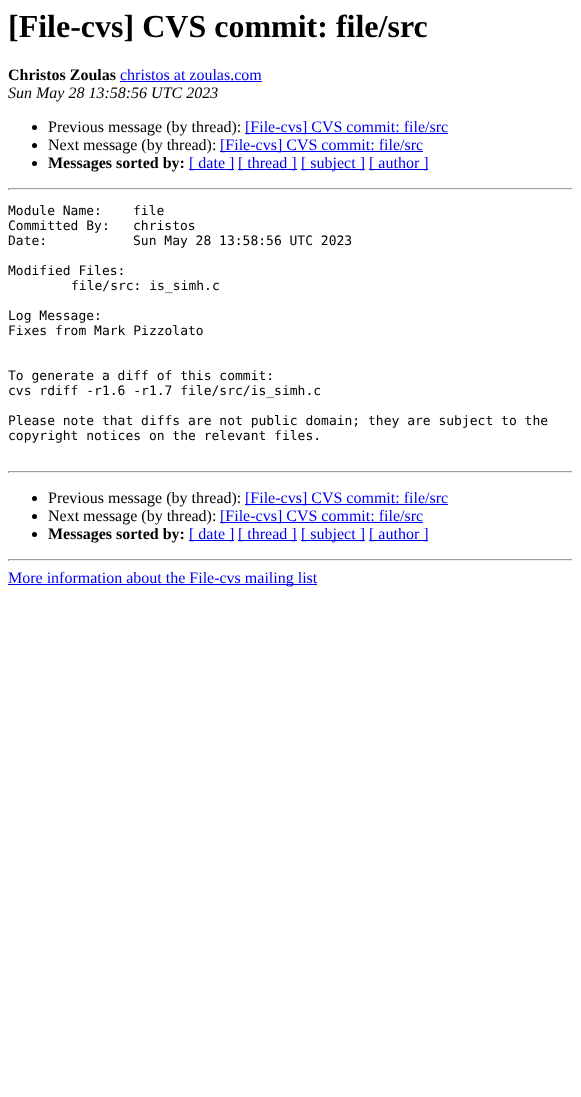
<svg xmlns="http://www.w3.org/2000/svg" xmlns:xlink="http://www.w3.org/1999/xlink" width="581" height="1097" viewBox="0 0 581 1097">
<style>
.cls-1{font:bold 32px Liberation Serif;fill:#000000}
.cls-2{font:bold 16px Liberation Serif;fill:#000000}
.cls-3{font:16px Liberation Serif;fill:#0000ee}
.cls-4{font:italic 16px Liberation Serif;fill:#000000}
.cls-5{font:16px Liberation Serif;fill:#000000}
.cls-6{font:13px DejaVu Sans Mono;fill:#000000}
</style>
<rect width="100%" height="100%" fill="#ffffff"/>
<rect fill="#0000ee" x="120" y="81" width="142" height="1"/>
<circle fill="#000000" cx="34.5" cy="127.5" r="2.5"/>
<rect fill="#0000ee" x="245" y="133" width="203" height="1"/>
<circle fill="#000000" cx="34.5" cy="145.5" r="2.5"/>
<rect fill="#0000ee" x="220" y="151" width="203" height="1"/>
<circle fill="#000000" cx="34.5" cy="163.5" r="2.5"/>
<rect fill="#0000ee" x="189" y="169" width="45" height="1"/>
<rect fill="#0000ee" x="238" y="169" width="59" height="1"/>
<rect fill="#0000ee" x="301" y="169" width="64" height="1"/>
<rect fill="#0000ee" x="369" y="169" width="59" height="1"/>
<rect fill="#9f9f9f" x="8" y="188" width="565" height="1"/>
<rect fill="#eeeeee" x="572" y="188" width="1" height="2"/>
<rect fill="#eeeeee" x="8" y="189" width="565" height="1"/>
<rect fill="#9f9f9f" x="8" y="188" width="1" height="2"/>
<rect fill="#9f9f9f" x="8" y="471" width="565" height="1"/>
<rect fill="#eeeeee" x="572" y="471" width="1" height="2"/>
<rect fill="#eeeeee" x="8" y="472" width="565" height="1"/>
<rect fill="#9f9f9f" x="8" y="471" width="1" height="2"/>
<circle fill="#000000" cx="34.5" cy="498.5" r="2.5"/>
<rect fill="#0000ee" x="245" y="504" width="203" height="1"/>
<circle fill="#000000" cx="34.5" cy="516.5" r="2.5"/>
<rect fill="#0000ee" x="220" y="522" width="203" height="1"/>
<circle fill="#000000" cx="34.5" cy="534.5" r="2.5"/>
<rect fill="#0000ee" x="189" y="540" width="45" height="1"/>
<rect fill="#0000ee" x="238" y="540" width="59" height="1"/>
<rect fill="#0000ee" x="301" y="540" width="64" height="1"/>
<rect fill="#0000ee" x="369" y="540" width="59" height="1"/>
<rect fill="#9f9f9f" x="8" y="559" width="565" height="1"/>
<rect fill="#eeeeee" x="572" y="559" width="1" height="2"/>
<rect fill="#eeeeee" x="8" y="560" width="565" height="1"/>
<rect fill="#9f9f9f" x="8" y="559" width="1" height="2"/>
<rect fill="#0000ee" x="8" y="584" width="309" height="1"/>
<text class="cls-1" x="8" y="37">[File-cvs] CVS commit: file/src</text>
<text class="cls-2" x="8" y="80">Christos Zoulas</text>
<text class="cls-3" x="120" y="80">christos at zoulas.com</text>
<text class="cls-4" x="8" y="98">Sun May 28 13:58:56 UTC 2023</text>
<text class="cls-5" x="48" y="132">Previous message (by thread):</text>
<text class="cls-3" x="245" y="132">[File-cvs] CVS commit: file/src</text>
<text class="cls-5" x="48" y="150">Next message (by thread):</text>
<text class="cls-3" x="220" y="150">[File-cvs] CVS commit: file/src</text>
<text class="cls-2" x="48" y="168">Messages sorted by:</text>
<text class="cls-3" x="189" y="168">[ date ]</text>
<text class="cls-3" x="238" y="168">[ thread ]</text>
<text class="cls-3" x="301" y="168">[ subject ]</text>
<text class="cls-3" x="369" y="168">[ author ]</text>
<text class="cls-6" x="8" y="215">Module Name:</text>
<text class="cls-6" x="133" y="215">file</text>
<text class="cls-6" x="8" y="230">Committed By:</text>
<text class="cls-6" x="133" y="230">christos</text>
<text class="cls-6" x="8" y="245">Date:</text>
<text class="cls-6" x="133" y="245">Sun May 28 13:58:56 UTC 2023</text>
<text class="cls-6" x="8" y="275">Modified Files:</text>
<text class="cls-6" x="71" y="290">file/src: is_simh.c</text>
<text class="cls-6"><tspan x="8" y="320">Log Message:</tspan><tspan x="8" y="335">Fixes from Mark Pizzolato</tspan></text>
<text class="cls-6"><tspan x="8" y="380">To generate a diff of this commit:</tspan><tspan x="8" y="395">cvs rdiff -r1.6 -r1.7 file/src/is_simh.c</tspan></text>
<text class="cls-6"><tspan x="8" y="425">Please note that diffs are not public domain; they are subject to the</tspan><tspan x="8" y="440">copyright notices on the relevant files.</tspan></text>
<text class="cls-5" x="48" y="503">Previous message (by thread):</text>
<text class="cls-3" x="245" y="503">[File-cvs] CVS commit: file/src</text>
<text class="cls-5" x="48" y="521">Next message (by thread):</text>
<text class="cls-3" x="220" y="521">[File-cvs] CVS commit: file/src</text>
<text class="cls-2" x="48" y="539">Messages sorted by:</text>
<text class="cls-3" x="189" y="539">[ date ]</text>
<text class="cls-3" x="238" y="539">[ thread ]</text>
<text class="cls-3" x="301" y="539">[ subject ]</text>
<text class="cls-3" x="369" y="539">[ author ]</text>
<text class="cls-3" x="8" y="583">More information about the File-cvs mailing list</text>
</svg>
